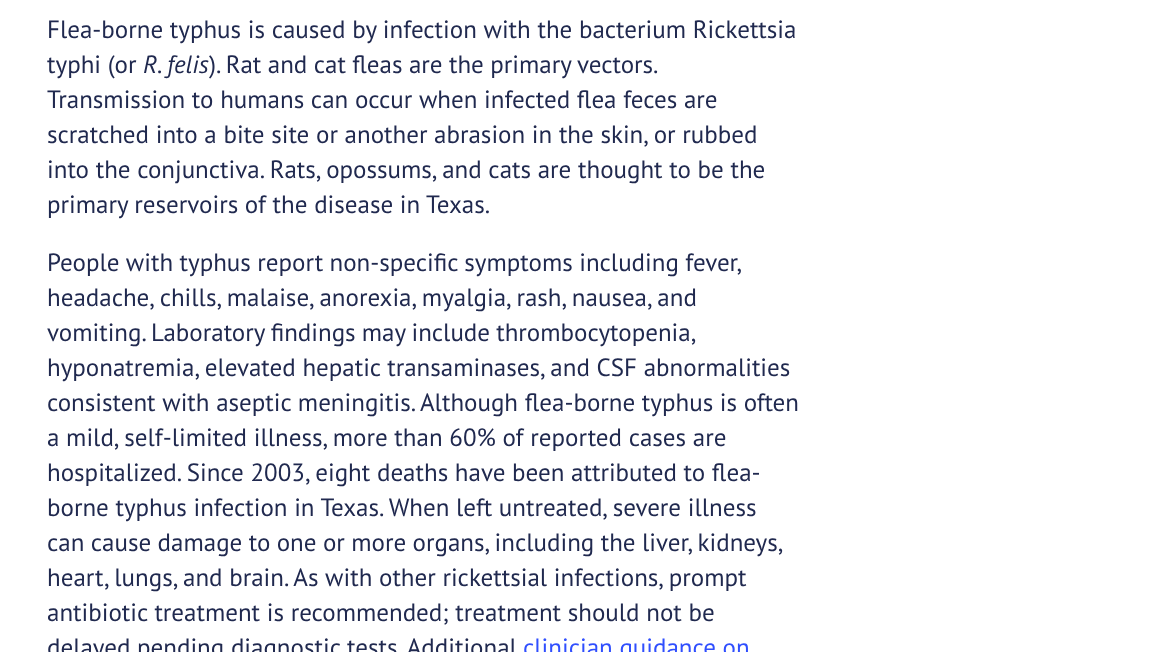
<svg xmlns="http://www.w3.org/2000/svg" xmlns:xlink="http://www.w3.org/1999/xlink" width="1170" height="652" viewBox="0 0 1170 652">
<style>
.cls-1{font:25px PT Sans;fill:#20294f}
.cls-2{font:italic 25px PT Sans;fill:#20294f}
.cls-3{font:25px PT Sans;fill:#304ffe}
</style>
<rect width="100%" height="100%" fill="#ffffff"/>
<text class="cls-1"><tspan x="47" y="38">Flea-borne typhus is caused by infection with the bacterium Rickettsia</tspan><tspan x="47" y="73">typhi (or</tspan></text>
<text class="cls-2" x="143" y="73">R. felis</text>
<text class="cls-1" x="209" y="73" word-spacing="-0.25">). Rat and cat fleas are the primary vectors.</text>
<text class="cls-1"><tspan x="47" y="108">Transmission to humans can occur when infected flea feces are</tspan><tspan x="47" y="143">scratched into a bite site or another abrasion in the skin, or rubbed</tspan><tspan x="47" y="178">into the conjunctiva. Rats, opossums, and cats are thought to be the</tspan><tspan x="47" y="213">primary reservoirs of the disease in Texas.</tspan></text>
<text class="cls-1"><tspan x="47" y="271" word-spacing="-0.25">People with typhus report non-specific symptoms including fever,</tspan><tspan x="47" y="306">headache, chills, malaise, anorexia, myalgia, rash, nausea, and</tspan><tspan x="47" y="341" word-spacing="-0.5">vomiting. Laboratory findings may include thrombocytopenia,</tspan><tspan x="47" y="376">hyponatremia, elevated hepatic transaminases, and CSF abnormalities</tspan><tspan x="47" y="411">consistent with aseptic meningitis. Although flea-borne typhus is often</tspan><tspan x="47" y="446">a mild, self-limited illness, more than 60% of reported cases are</tspan><tspan x="47" y="481">hospitalized. Since 2003, eight deaths have been attributed to flea-</tspan><tspan x="47" y="516">borne typhus infection in Texas. When left untreated, severe illness</tspan><tspan x="47" y="551" word-spacing="-0.25">can cause damage to one or more organs, including the liver, kidneys,</tspan><tspan x="47" y="586">heart, lungs, and brain. As with other rickettsial infections, prompt</tspan><tspan x="47" y="621">antibiotic treatment is recommended; treatment should not be</tspan><tspan x="47" y="656">delayed pending diagnostic tests. Additional</tspan></text>
<text class="cls-3" x="523" y="656">clinician guidance on</text>
</svg>
